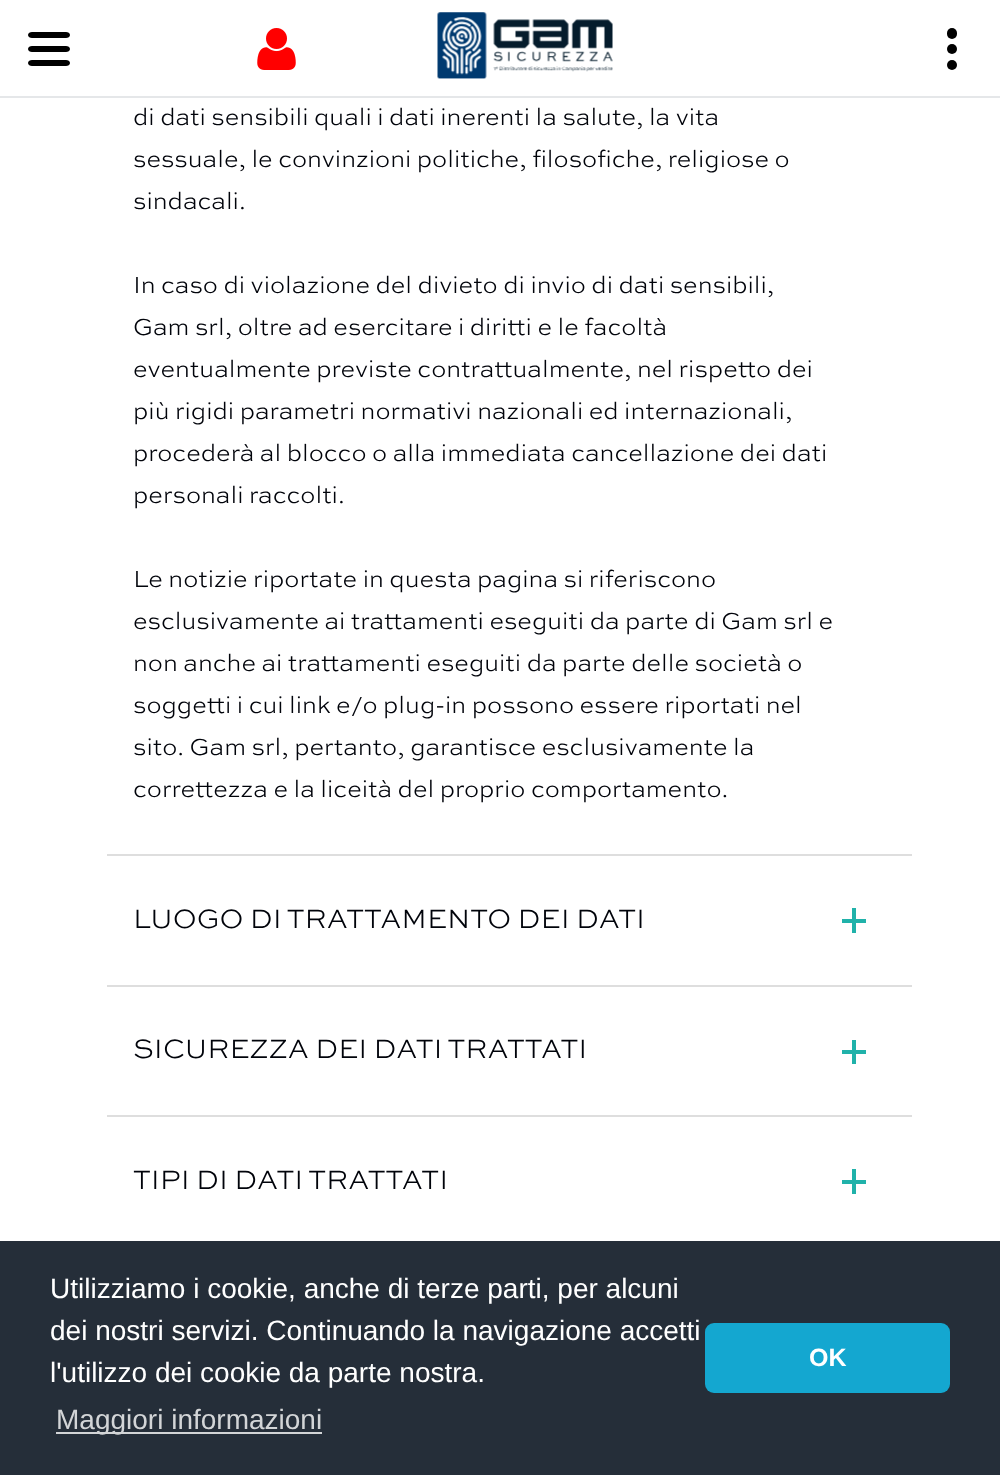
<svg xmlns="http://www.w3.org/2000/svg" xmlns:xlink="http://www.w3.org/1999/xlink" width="1000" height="1475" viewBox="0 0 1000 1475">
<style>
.cls-1{font:300 24.5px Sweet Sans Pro;fill:#00030a}
.cls-2{font:300 28px Sweet Sans Pro;fill:#00030a}
.cls-3{font:28px Liberation Sans;fill:#ffffff}
.cls-4{font:28px Liberation Sans;fill:#d3d5d7}
.cls-5{font:bold 25px Liberation Sans;fill:#ffffff}
</style>
<rect width="100%" height="100%" fill="#ffffff"/>
<path fill="#000000" d="M66 52H32C30 52 28 51 28 49C28 47 30 46 32 46H66C68 46 70 47 70 49C70 51 68 52 66 52ZM66 66H32C30 66 28 65 28 63C28 61 30 60 32 60H66C68 60 70 61 70 63C70 65 68 66 66 66ZM66 38H32C30 38 28 37 28 35C28 33 30 32 32 32H66C68 32 70 33 70 35C70 37 68 38 66 38Z"/>
<image xlink:href="image0.png" x="257" y="28" width="39" height="42"/>
<image xlink:href="image1.png" x="437" y="12" width="176" height="67"/>
<rect fill="#e5e7e9" x="0" y="96" width="1000" height="2"/>
<circle fill="#000000" cx="952" cy="49" r="5"/>
<rect fill="#000000" x="947" y="28" width="10" height="11" rx="5"/>
<circle fill="#000000" cx="952" cy="65" r="5"/>
<rect fill="#dedede" x="107" y="854" width="805" height="2"/>
<rect fill="#dedede" x="107" y="985" width="805" height="2"/>
<rect fill="#20b2aa" x="842" y="919" width="24" height="4"/>
<rect fill="#20b2aa" x="852" y="908" width="4" height="25"/>
<rect fill="#dedede" x="107" y="1115" width="805" height="2"/>
<rect fill="#20b2aa" x="842" y="1050" width="24" height="4"/>
<rect fill="#20b2aa" x="852" y="1040" width="4" height="24"/>
<rect fill="#20b2aa" x="842" y="1180" width="24" height="4"/>
<rect fill="#20b2aa" x="852" y="1169" width="4" height="25"/>
<rect fill="#252e39" x="0" y="1241" width="1000" height="234"/>
<rect fill="#d3d5d7" x="56" y="1432" width="266" height="2"/>
<rect fill="#14a7d0" x="705" y="1323" width="245" height="70" rx="9"/>
<text class="cls-1"><tspan x="133" y="125">di dati sensibili quali i dati inerenti la salute, la vita</tspan><tspan x="133" y="167">sessuale, le convinzioni politiche, filosofiche, religiose o</tspan><tspan x="133" y="209">sindacali.</tspan></text>
<text class="cls-1"><tspan x="133" y="293">In caso di violazione del divieto di invio di dati sensibili,</tspan><tspan x="133" y="335">Gam srl, oltre ad esercitare i diritti e le facoltà</tspan><tspan x="133" y="377">eventualmente previste contrattualmente, nel rispetto dei</tspan><tspan x="133" y="419">più rigidi parametri normativi nazionali ed internazionali,</tspan><tspan x="133" y="461">procederà al blocco o alla immediata cancellazione dei dati</tspan><tspan x="133" y="503">personali raccolti.</tspan></text>
<text class="cls-1"><tspan x="133" y="587">Le notizie riportate in questa pagina si riferiscono</tspan><tspan x="133" y="629">esclusivamente ai trattamenti eseguiti da parte di Gam srl e</tspan><tspan x="133" y="671">non anche ai trattamenti eseguiti da parte delle società o</tspan><tspan x="133" y="713">soggetti i cui link e/o plug-in possono essere riportati nel</tspan><tspan x="133" y="755">sito. Gam srl, pertanto, garantisce esclusivamente la</tspan><tspan x="133" y="797">correttezza e la liceità del proprio comportamento.</tspan></text>
<text class="cls-2" x="133" y="928">LUOGO DI TRATTAMENTO DEI DATI</text>
<text class="cls-2" x="133" y="1058">SICUREZZA DEI DATI TRATTATI</text>
<text class="cls-2" x="133" y="1189">TIPI DI DATI TRATTATI</text>
<text class="cls-3"><tspan x="50" y="1298">Utilizziamo i cookie, anche di terze parti, per alcuni</tspan><tspan x="50" y="1340">dei nostri servizi. Continuando la navigazione accetti</tspan><tspan x="50" y="1382">l'utilizzo dei cookie da parte nostra.</tspan></text>
<text class="cls-4" x="56" y="1429">Maggiori informazioni</text>
<text class="cls-5" x="809" y="1366">OK</text>
</svg>
